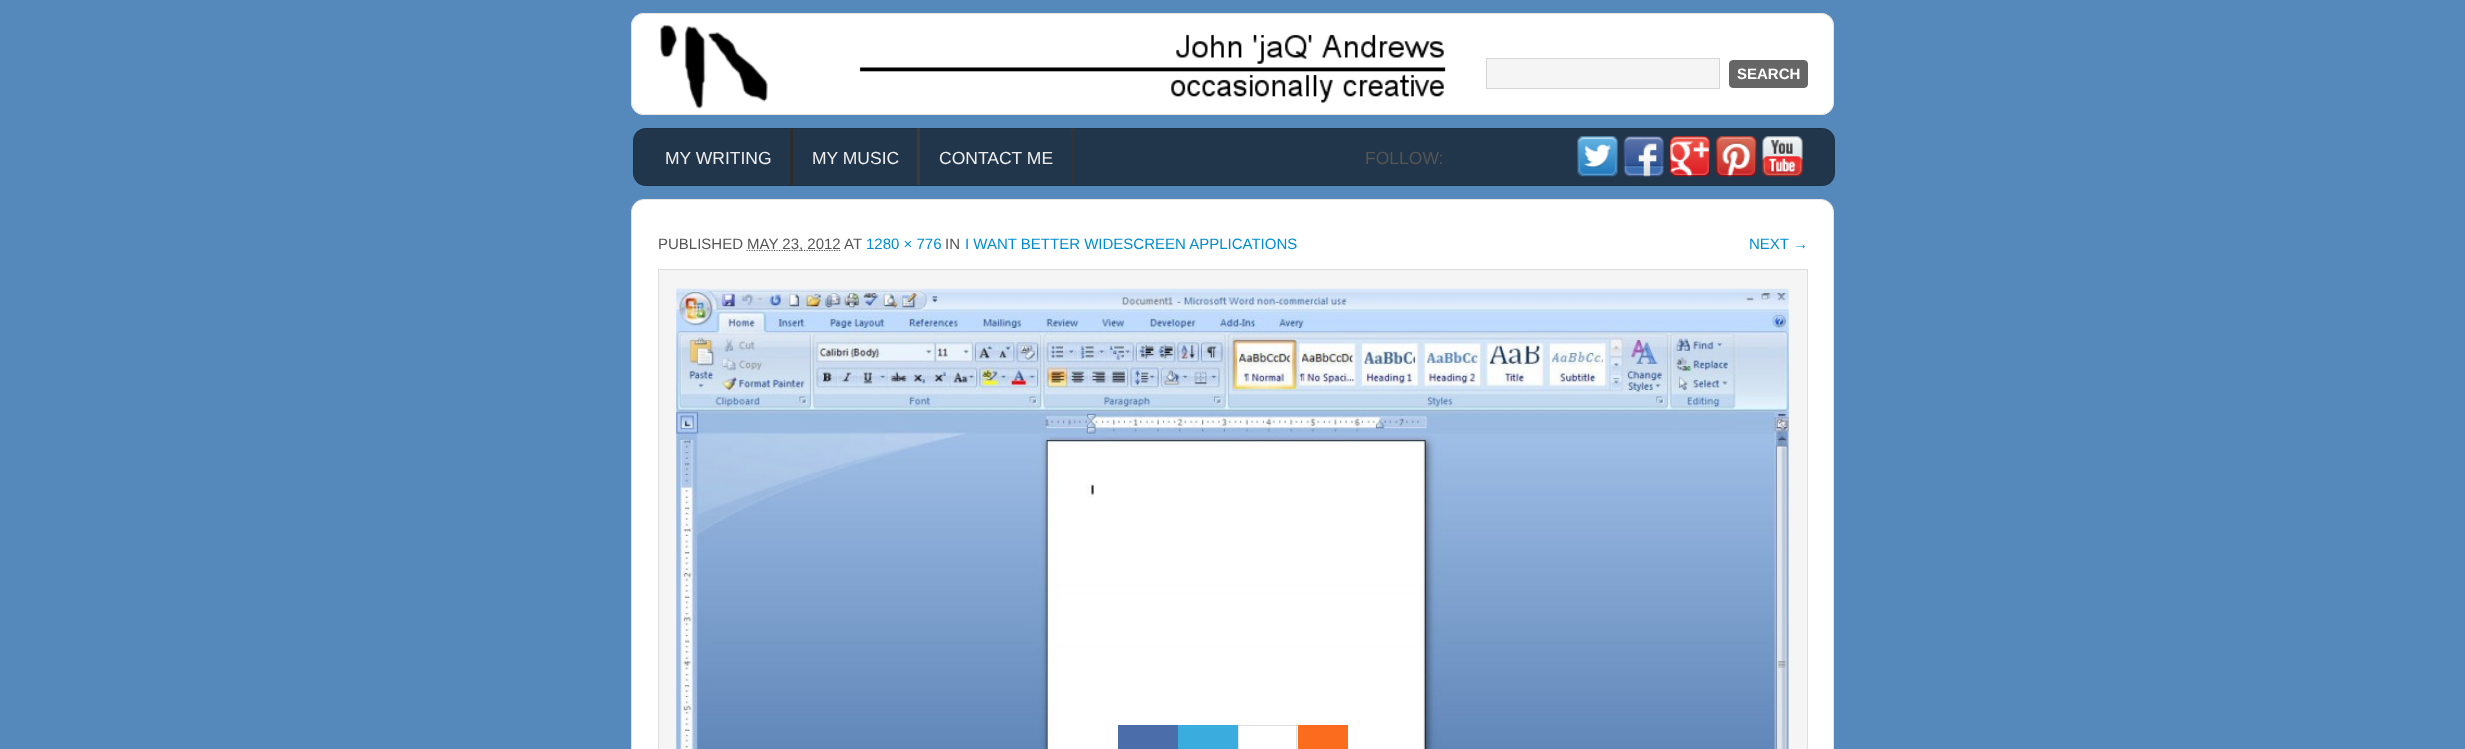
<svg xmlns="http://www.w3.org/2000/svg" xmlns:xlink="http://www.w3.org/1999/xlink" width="2465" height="749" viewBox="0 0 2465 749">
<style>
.cls-1{font:bold 15px Liberation Sans;fill:#ffffff}
.cls-2{font:17.5px Liberation Sans;fill:#eeeeee}
.cls-3{font:17.5px Liberation Sans;fill:#555555}
.cls-4{font:15px Liberation Sans;fill:#555555}
.cls-5{font:15px Liberation Sans;fill:#008dcf}
</style>
<rect width="100%" height="100%" fill="#5588bb"/>
<rect fill="#ffffff" x="631" y="13" width="1203" height="102" rx="13"/>
<image xlink:href="image0.png" x="660" y="24" width="786" height="85"/>
<rect fill="none" stroke="#e4e4e4" x="631.5" y="13.5" width="1202" height="101" rx="12.5"/>
<rect fill="#f5f5f5" stroke="#d6d6d6" x="1486.5" y="58.5" width="233" height="30"/>
<rect fill="#666666" stroke="#666666" x="1729.5" y="60.5" width="78" height="27" rx="3.5"/>
<rect fill="#22364b" x="633" y="128" width="1202" height="58" rx="13"/>
<rect fill="none" stroke="#000000" stroke-opacity="0.1" x="633.5" y="128.5" width="1201" height="57" rx="12.5"/>
<rect fill="#2c2c2c" x="790" y="128" width="3" height="57"/>
<rect fill="#3b3b3b" x="917" y="128" width="3" height="57"/>
<rect fill="#333333" x="1071" y="128" width="3" height="57"/>
<image xlink:href="image1.png" x="1577" y="136" width="41" height="41"/>
<image xlink:href="image2.png" x="1623" y="136" width="41" height="41"/>
<image xlink:href="image3.png" x="1670" y="136" width="40" height="41"/>
<image xlink:href="image4.png" x="1716" y="136" width="41" height="41"/>
<image xlink:href="image5.png" x="1762" y="136" width="41" height="41"/>
<rect fill="#ffffff" stroke="#e4e4e4" x="631.5" y="199.5" width="1202" height="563" rx="12.5"/>
<path fill="none" stroke="#555555" stroke-width="1.2" stroke-dasharray="1.25 1.25" d="M746.5 250.5H840.5"/>
<rect fill="#f5f5f5" stroke="#dddddd" x="658.5" y="269.5" width="1149" height="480"/>
<image xlink:href="image6.png" x="676" y="288" width="1113" height="461"/>
<rect fill="#4b6daa" x="1118" y="725" width="60" height="24"/>
<rect fill="#3aacde" x="1178" y="725" width="60" height="24"/>
<rect fill="#e0e0e0" x="1238" y="725" width="60" height="1"/>
<rect fill="#e0e0e0" x="1296" y="725" width="1" height="24"/>
<rect fill="#e0e0e0" x="1238" y="725" width="1" height="24"/>
<rect fill="#fb6c1e" x="1298" y="725" width="50" height="24"/>
<text class="cls-1" x="1737" y="79">SEARCH</text>
<text class="cls-2" x="665" y="164">MY WRITING</text>
<text class="cls-2" x="812" y="164">MY MUSIC</text>
<text class="cls-2" x="939" y="164">CONTACT ME</text>
<text class="cls-3" x="1365" y="164">FOLLOW:</text>
<text class="cls-4" x="658" y="249">PUBLISHED</text>
<text class="cls-4" x="747" y="249">MAY 23, 2012</text>
<text class="cls-4" x="844" y="249">AT</text>
<text class="cls-5" x="866" y="249">1280 × 776</text>
<text class="cls-4" x="945" y="249">IN</text>
<text class="cls-5" x="965" y="249">I WANT BETTER WIDESCREEN APPLICATIONS</text>
<text class="cls-5" x="1749" y="249">NEXT →</text>
</svg>
